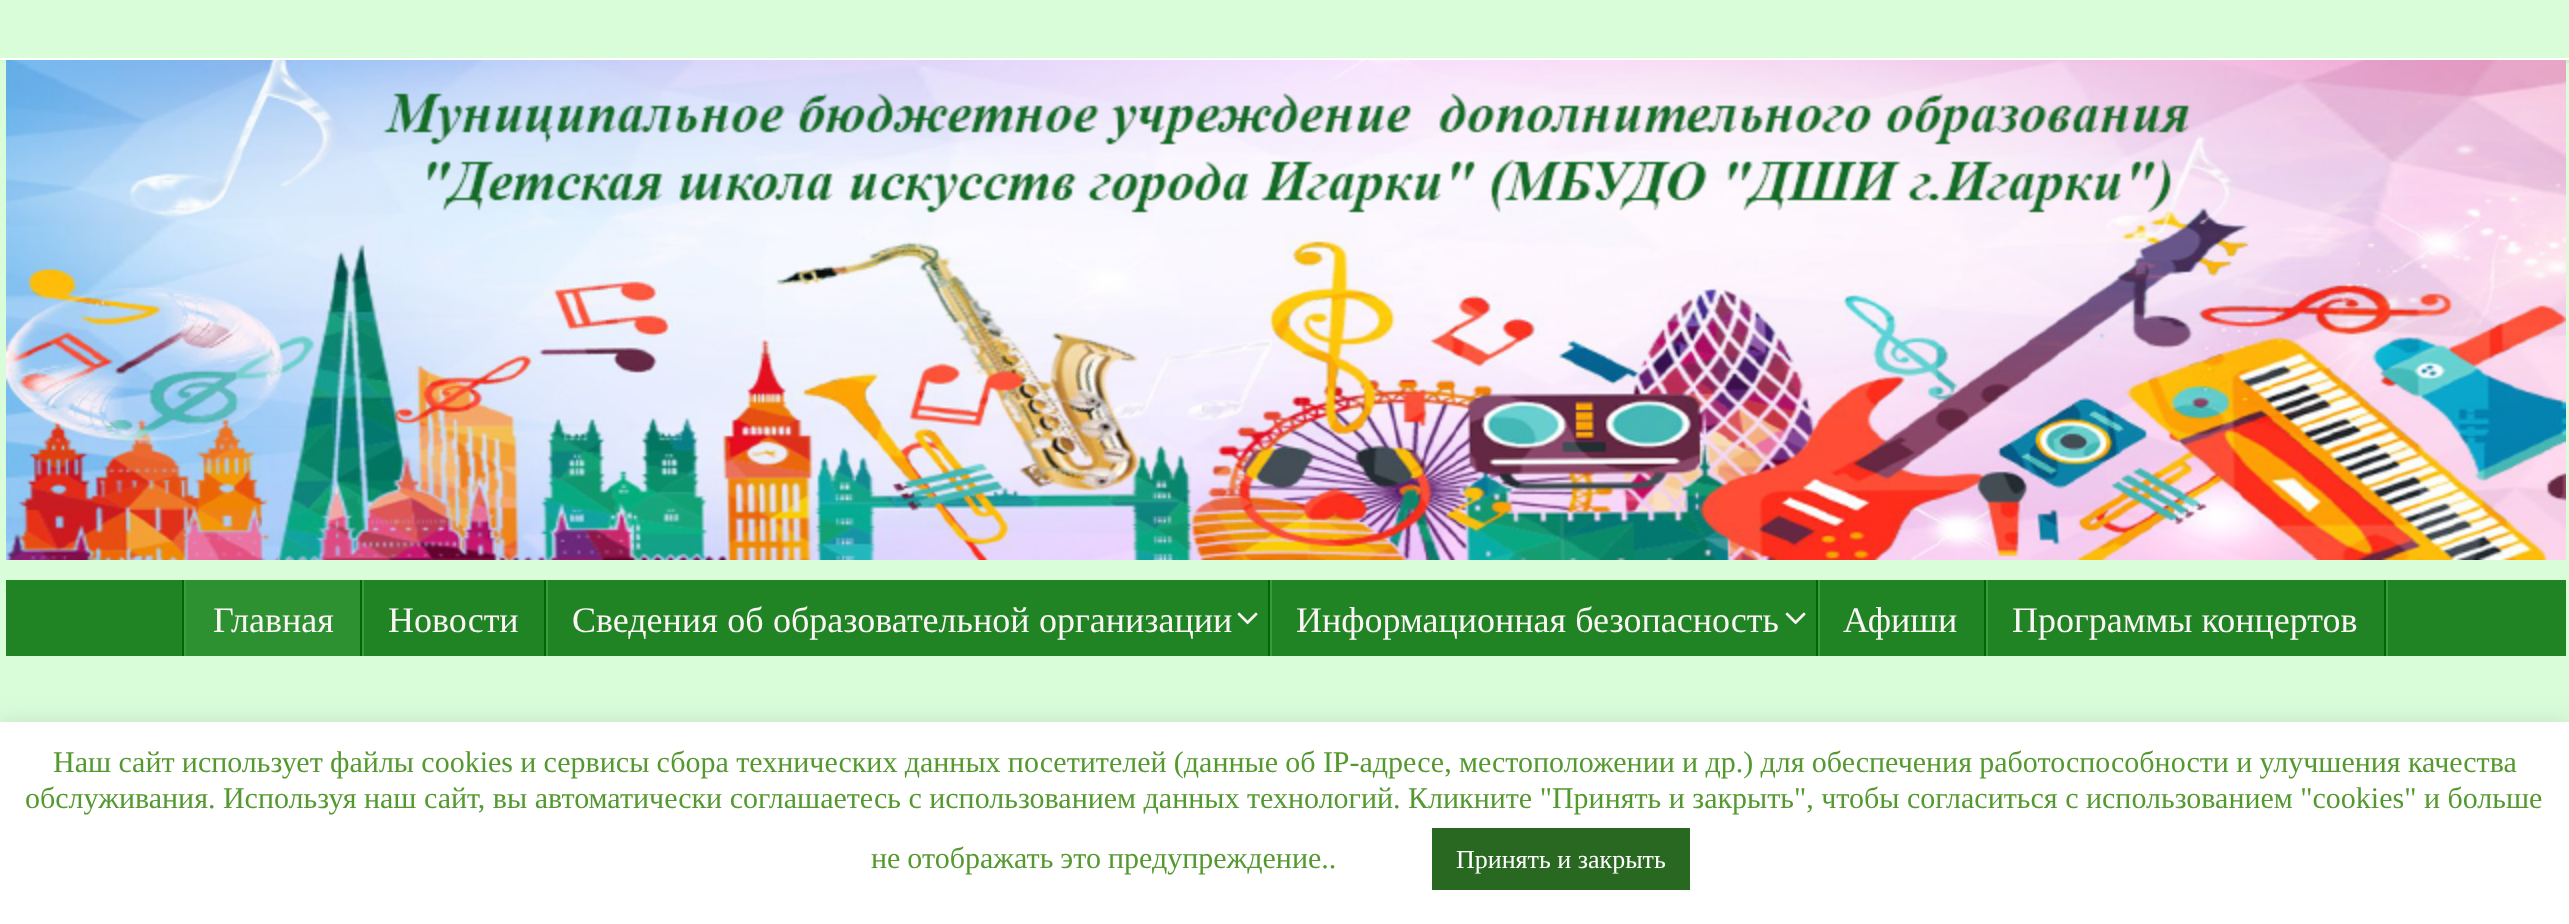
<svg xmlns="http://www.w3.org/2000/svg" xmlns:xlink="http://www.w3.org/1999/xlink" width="2569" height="924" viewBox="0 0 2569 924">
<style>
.cls-1{font:36px Liberation Serif;fill:#faf4f4}
.cls-2{font:30px Liberation Serif;fill:#54992f}
.cls-3{font:26px Liberation Serif;fill:#ffffff}
</style>
<defs>
<clipPath id="clip1"><rect x="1" y="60" width="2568" height="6"/></clipPath>
</defs>
<rect width="100%" height="100%" fill="#d8fdd8"/>
<g clip-path="url(#clip1)">
<rect fill="#b0d5b0" filter="blur(3px)" x="6" y="0" width="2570" height="60"/>
</g>
<rect fill="#ffffff" x="0" y="58" width="2569" height="2"/>
<image xlink:href="image0.png" x="6" y="60" width="2560" height="500"/>
<rect fill="#208324" x="6" y="580" width="2560" height="76"/>
<rect fill="#026506" x="182" y="580" width="2" height="76"/>
<rect fill="#389b3c" x="184" y="580" width="2" height="76"/>
<rect fill="#2d9031" x="186" y="580" width="174" height="76"/>
<rect fill="#389b3c" x="362" y="580" width="2" height="76"/>
<rect fill="#026506" x="360" y="580" width="2" height="76"/>
<rect fill="#389b3c" x="546" y="580" width="2" height="76"/>
<rect fill="#026506" x="544" y="580" width="2" height="76"/>
<rect fill="#389b3c" x="1270" y="580" width="2" height="76"/>
<rect fill="#026506" x="1268" y="580" width="2" height="76"/>
<image xlink:href="image1.png" x="1237" y="612" width="21" height="13"/>
<rect fill="#389b3c" x="1818" y="580" width="2" height="76"/>
<rect fill="#026506" x="1816" y="580" width="2" height="76"/>
<image xlink:href="image1.png" x="1785" y="612" width="21" height="13"/>
<rect fill="#389b3c" x="1986" y="580" width="2" height="76"/>
<rect fill="#026506" x="1984" y="580" width="2" height="76"/>
<rect fill="#389b3c" x="2386" y="580" width="2" height="76"/>
<rect fill="#026506" x="2384" y="580" width="2" height="76"/>
<rect fill="#acabab" fill-opacity="0.3" filter="blur(10px)" x="0" y="720" width="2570" height="202"/>
<rect fill="#ffffff" x="0" y="722" width="2569" height="202"/>
<rect fill="#286820" x="1432" y="828" width="258" height="62"/>
<text class="cls-1" x="213" y="632">Главная</text>
<text class="cls-1" x="388" y="632">Новости</text>
<text class="cls-1" x="572" y="632" word-spacing="0.5">Сведения об образовательной организации</text>
<text class="cls-1" x="1296" y="632">Информационная безопасность</text>
<text class="cls-1" x="1843" y="632">Афиши</text>
<text class="cls-1" x="2012" y="632">Программы концертов</text>
<text class="cls-2" x="53" y="772" word-spacing="-0.2">Наш сайт использует файлы cookies и сервисы сбора технических данных посетителей (данные об IP-адресе, местоположении и др.) для обеспечения работоспособности и улучшения качества</text>
<text class="cls-2" x="25" y="808">обслуживания. Используя наш сайт, вы автоматически соглашаетесь с использованием данных технологий. Кликните "Принять и закрыть", чтобы согласиться с использованием "cookies" и больше</text>
<text class="cls-2" x="871" y="868" word-spacing="-0.5">не отображать это предупреждение..</text>
<text class="cls-3" x="1456" y="868">Принять и закрыть</text>
</svg>
